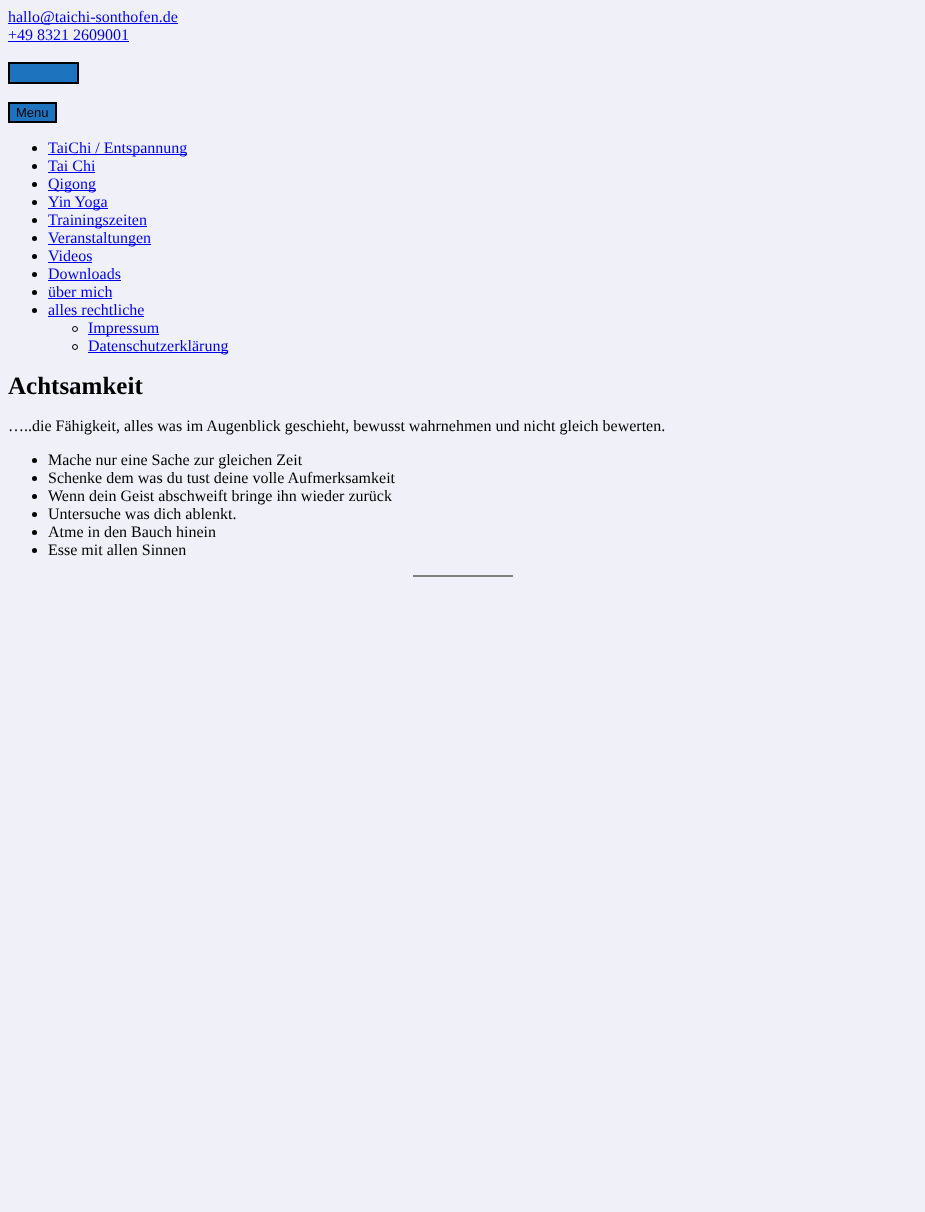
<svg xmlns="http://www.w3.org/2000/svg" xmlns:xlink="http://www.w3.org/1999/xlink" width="925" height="1212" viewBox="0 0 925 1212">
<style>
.cls-1{font:16px Liberation Serif;fill:#0000ee}
.cls-2{font:13px Liberation Sans;fill:#000000}
.cls-3{font:bold 25px Liberation Serif;fill:#000000}
.cls-4{font:16px Liberation Serif;fill:#000000}
</style>
<rect width="100%" height="100%" fill="#f0f0f8"/>
<rect fill="#0000ee" x="8" y="23" width="170" height="1"/>
<rect fill="#0000ee" x="8" y="41" width="121" height="1"/>
<rect fill="#1e73be" stroke="#000000" stroke-width="2" x="9" y="63" width="69" height="20"/>
<rect fill="#1e73be" stroke="#000000" stroke-width="2" x="9" y="103" width="47" height="19"/>
<circle fill="#000000" cx="34.5" cy="148.5" r="2.5"/>
<rect fill="#0000ee" x="48" y="154" width="139" height="1"/>
<circle fill="#000000" cx="34.5" cy="166.5" r="2.5"/>
<rect fill="#0000ee" x="48" y="172" width="47" height="1"/>
<circle fill="#000000" cx="34.5" cy="184.5" r="2.5"/>
<rect fill="#0000ee" x="48" y="190" width="48" height="1"/>
<circle fill="#000000" cx="34.5" cy="202.5" r="2.5"/>
<rect fill="#0000ee" x="48" y="208" width="60" height="1"/>
<circle fill="#000000" cx="34.5" cy="220.5" r="2.5"/>
<rect fill="#0000ee" x="48" y="226" width="99" height="1"/>
<circle fill="#000000" cx="34.5" cy="238.5" r="2.5"/>
<rect fill="#0000ee" x="48" y="244" width="103" height="1"/>
<circle fill="#000000" cx="34.5" cy="256.5" r="2.5"/>
<rect fill="#0000ee" x="48" y="262" width="44" height="1"/>
<circle fill="#000000" cx="34.5" cy="274.5" r="2.5"/>
<rect fill="#0000ee" x="48" y="280" width="73" height="1"/>
<circle fill="#000000" cx="34.5" cy="292.5" r="2.5"/>
<rect fill="#0000ee" x="48" y="298" width="64" height="1"/>
<circle fill="#000000" cx="34.5" cy="310.5" r="2.5"/>
<rect fill="#0000ee" x="48" y="316" width="96" height="1"/>
<circle fill="none" stroke="#000000" cx="75" cy="329" r="2.5"/>
<rect fill="#0000ee" x="88" y="334" width="71" height="1"/>
<circle fill="none" stroke="#000000" cx="75" cy="347" r="2.5"/>
<rect fill="#0000ee" x="88" y="352" width="140" height="1"/>
<circle fill="#000000" cx="34.5" cy="460.5" r="2.5"/>
<circle fill="#000000" cx="34.5" cy="478.5" r="2.5"/>
<circle fill="#000000" cx="34.5" cy="496.5" r="2.5"/>
<circle fill="#000000" cx="34.5" cy="514.5" r="2.5"/>
<circle fill="#000000" cx="34.5" cy="532.5" r="2.5"/>
<circle fill="#000000" cx="34.5" cy="550.5" r="2.5"/>
<rect fill="#808080" x="413" y="575" width="100" height="2"/>
<text class="cls-1"><tspan x="8" y="22">hallo@taichi-sonthofen.de</tspan><tspan x="8" y="40">+49 8321 2609001</tspan></text>
<text class="cls-2" x="16" y="117">Menu</text>
<text class="cls-1"><tspan x="48" y="153">TaiChi / Entspannung</tspan><tspan x="48" y="171">Tai Chi</tspan><tspan x="48" y="189">Qigong</tspan><tspan x="48" y="207">Yin Yoga</tspan><tspan x="48" y="225">Trainingszeiten</tspan><tspan x="48" y="243">Veranstaltungen</tspan><tspan x="48" y="261">Videos</tspan><tspan x="48" y="279">Downloads</tspan><tspan x="48" y="297">über mich</tspan><tspan x="48" y="315">alles rechtliche</tspan></text>
<text class="cls-1"><tspan x="88" y="333">Impressum</tspan><tspan x="88" y="351">Datenschutzerklärung</tspan></text>
<text class="cls-3" x="8" y="394">Achtsamkeit</text>
<text class="cls-4" x="8" y="431">…..die Fähigkeit, alles was im Augenblick geschieht, bewusst wahrnehmen und nicht gleich bewerten.</text>
<text class="cls-4"><tspan x="48" y="465">Mache nur eine Sache zur gleichen Zeit</tspan><tspan x="48" y="483">Schenke dem was du tust deine volle Aufmerksamkeit</tspan><tspan x="48" y="501">Wenn dein Geist abschweift bringe ihn wieder zurück</tspan><tspan x="48" y="519">Untersuche was dich ablenkt.</tspan><tspan x="48" y="537">Atme in den Bauch hinein</tspan><tspan x="48" y="555">Esse mit allen Sinnen</tspan></text>
</svg>
